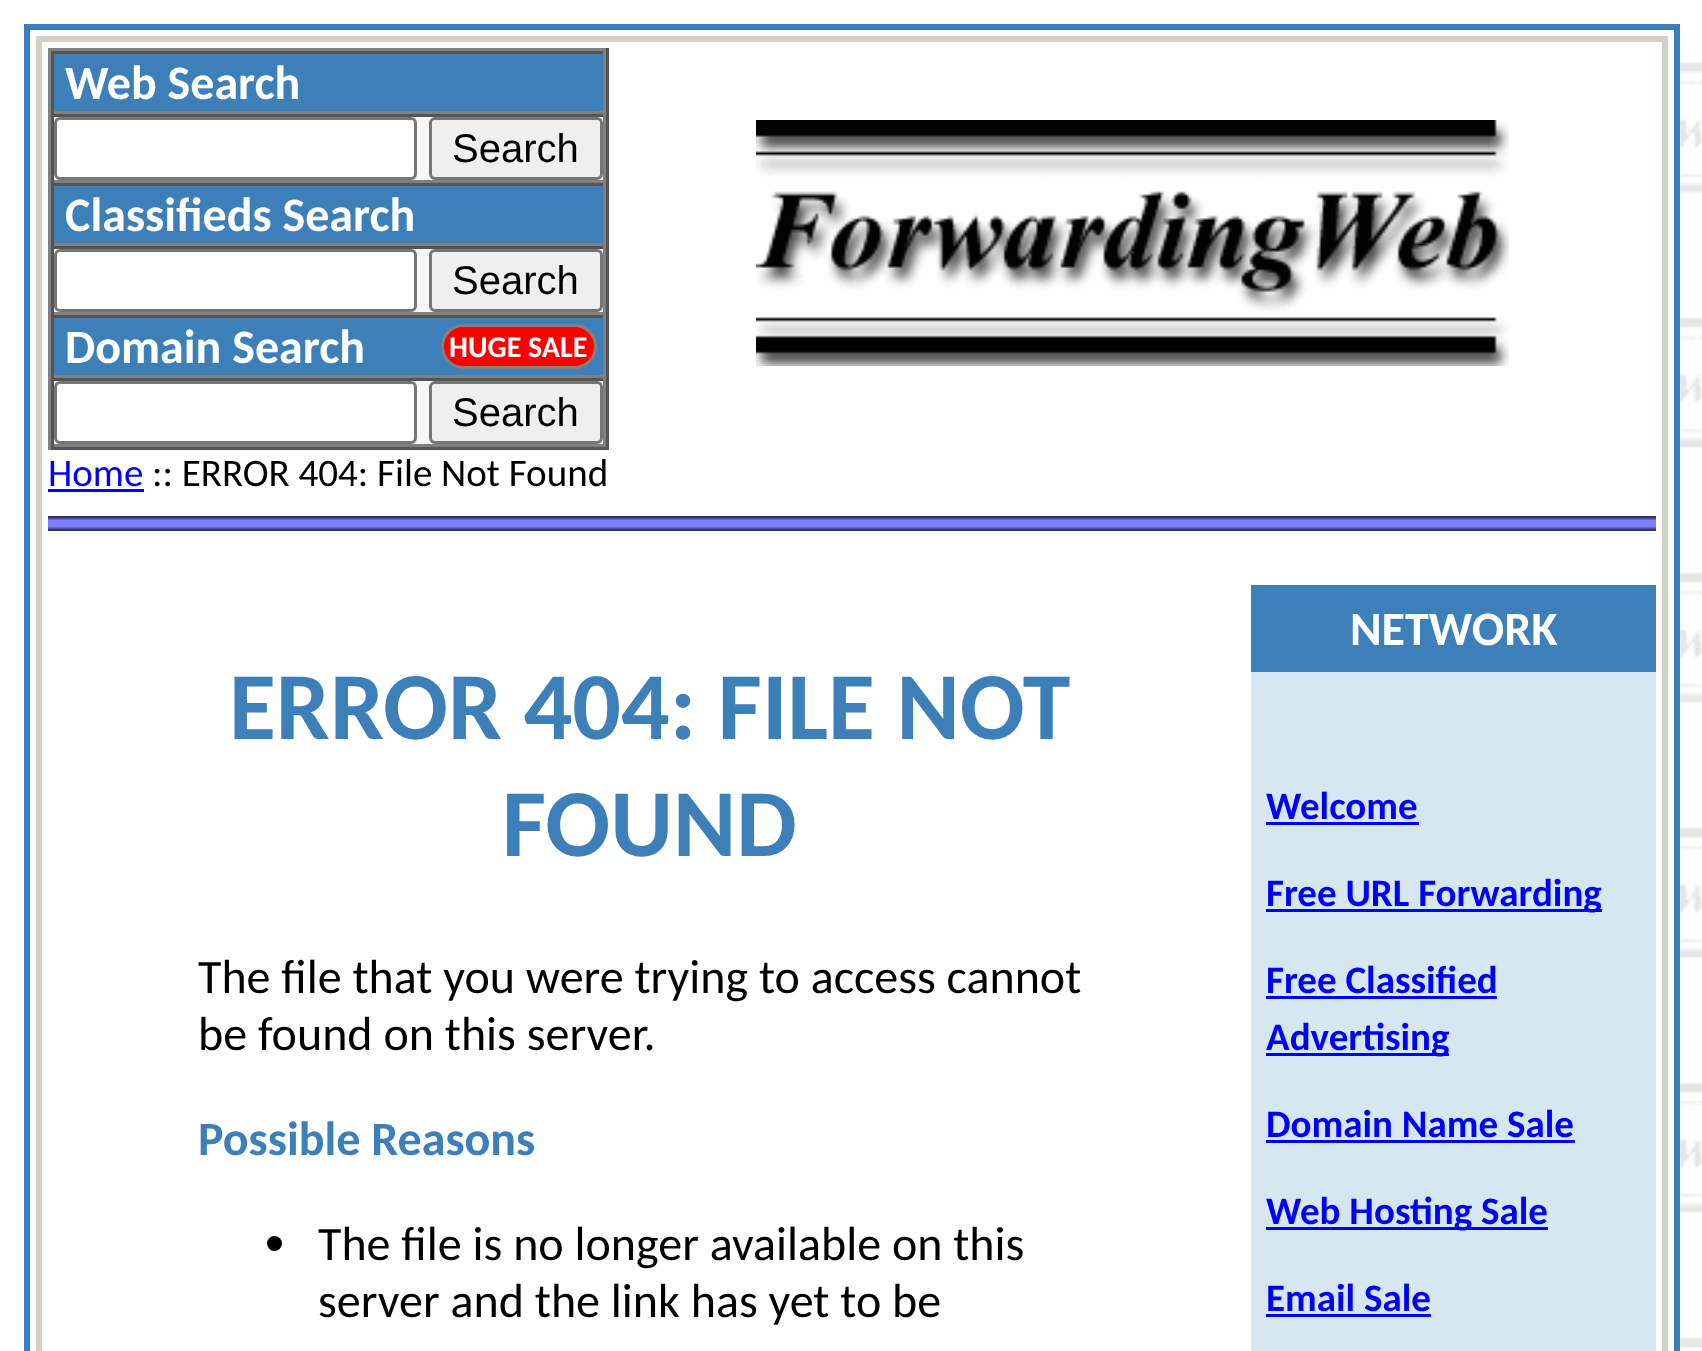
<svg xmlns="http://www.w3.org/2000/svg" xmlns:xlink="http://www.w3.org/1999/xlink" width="1702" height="1351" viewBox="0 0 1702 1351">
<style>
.cls-1{font:bold 48px Carlito;fill:#ffffff}
.cls-2{font:40px Liberation Sans;fill:#000000}
.cls-3{font:bold 30px Carlito;fill:#ffffff}
.cls-4{font:39px Carlito;fill:#0000ff}
.cls-5{font:39px Carlito;fill:#000000}
.cls-6{font:bold 96px Carlito;fill:#3d80b9}
.cls-7{font:48px Carlito;fill:#000000}
.cls-8{font:bold 48px Carlito;fill:#3d80b9}
.cls-9{font:bold 39px Carlito;fill:#0000ff}
</style>
<rect width="100%" height="100%" fill="#ffffff"/>
<image xlink:href="image0.png" x="1680" y="62" width="22" height="1286"/>
<rect fill="none" stroke="#3d80b9" stroke-width="3" x="25.5" y="25.5" width="1653" height="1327"/>
<rect fill="none" stroke="#3d80b9" stroke-width="3" x="28.5" y="28.5" width="1647" height="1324"/>
<rect fill="none" stroke="#d4d0c8" stroke-width="3" x="37.5" y="37.5" width="1629" height="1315"/>
<rect fill="none" stroke="#d4d0c8" stroke-width="3" x="40.5" y="40.5" width="1623" height="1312"/>
<rect fill="#f6f6f6" x="54" y="117" width="549" height="327"/>
<rect fill="#808080" x="48" y="48" width="561" height="3"/>
<rect fill="#555555" x="606" y="48" width="3" height="402"/>
<rect fill="#555555" x="48" y="447" width="561" height="3"/>
<rect fill="#808080" x="48" y="48" width="3" height="402"/>
<rect fill="#3d80b9" x="54" y="54" width="549" height="57"/>
<rect fill="#555555" x="51" y="51" width="555" height="3"/>
<rect fill="#808080" x="603" y="51" width="3" height="63"/>
<rect fill="#808080" x="51" y="111" width="555" height="3"/>
<rect fill="#555555" x="51" y="51" width="3" height="63"/>
<rect fill="#555555" x="51" y="114" width="555" height="3"/>
<rect fill="#808080" x="603" y="114" width="3" height="69"/>
<rect fill="#808080" x="51" y="180" width="555" height="3"/>
<rect fill="#555555" x="51" y="114" width="3" height="69"/>
<rect fill="#ffffff" stroke="#767676" stroke-width="3" x="55.5" y="118.5" width="360" height="60" rx="4.5"/>
<rect fill="#efefef" stroke="#767676" stroke-width="3" x="430.5" y="118.5" width="171" height="60" rx="4.5"/>
<rect fill="#3d80b9" x="54" y="186" width="549" height="57"/>
<rect fill="#555555" x="51" y="183" width="555" height="3"/>
<rect fill="#808080" x="603" y="183" width="3" height="63"/>
<rect fill="#808080" x="51" y="243" width="555" height="3"/>
<rect fill="#555555" x="51" y="183" width="3" height="63"/>
<rect fill="#555555" x="51" y="246" width="555" height="3"/>
<rect fill="#808080" x="603" y="246" width="3" height="69"/>
<rect fill="#808080" x="51" y="312" width="555" height="3"/>
<rect fill="#555555" x="51" y="246" width="3" height="69"/>
<rect fill="#ffffff" stroke="#767676" stroke-width="3" x="55.5" y="250.5" width="360" height="60" rx="4.5"/>
<rect fill="#efefef" stroke="#767676" stroke-width="3" x="430.5" y="250.5" width="171" height="60" rx="4.5"/>
<rect fill="#3d80b9" x="54" y="318" width="549" height="57"/>
<rect fill="#555555" x="51" y="315" width="555" height="3"/>
<rect fill="#808080" x="603" y="315" width="3" height="63"/>
<rect fill="#808080" x="51" y="375" width="555" height="3"/>
<rect fill="#555555" x="51" y="315" width="3" height="63"/>
<rect fill="#ff0000" stroke="#808080" stroke-width="3" x="442.5" y="325.5" width="153" height="42" rx="21"/>
<rect fill="#555555" x="51" y="378" width="555" height="3"/>
<rect fill="#808080" x="603" y="378" width="3" height="69"/>
<rect fill="#808080" x="51" y="444" width="555" height="3"/>
<rect fill="#555555" x="51" y="378" width="3" height="69"/>
<rect fill="#ffffff" stroke="#767676" stroke-width="3" x="55.5" y="382.5" width="360" height="60" rx="4.5"/>
<rect fill="#efefef" stroke="#767676" stroke-width="3" x="430.5" y="382.5" width="171" height="60" rx="4.5"/>
<image xlink:href="image1.png" x="756" y="120" width="753" height="246"/>
<rect fill="#0000ff" x="48" y="489" width="96" height="3"/>
<image xlink:href="image2.png" x="48" y="516" width="1608" height="15"/>
<circle fill="#000000" cx="274.5" cy="1243.5" r="7.5"/>
<rect fill="#d5e8f1" x="1251" y="672" width="405" height="679"/>
<rect fill="#3d80b9" x="1251" y="585" width="405" height="87"/>
<rect fill="#0000ff" x="1266" y="822" width="153" height="3"/>
<rect fill="#0000ff" x="1266" y="909" width="336" height="3"/>
<rect fill="#0000ff" x="1266" y="996" width="231" height="3"/>
<rect fill="#0000ff" x="1266" y="1053" width="183" height="3"/>
<rect fill="#0000ff" x="1266" y="1140" width="309" height="3"/>
<rect fill="#0000ff" x="1266" y="1227" width="282" height="3"/>
<rect fill="#0000ff" x="1266" y="1314" width="165" height="3"/>
<text class="cls-1" x="65" y="99">Web Search</text>
<text class="cls-2" x="452" y="162">Search</text>
<text class="cls-1" x="65" y="231">Classifieds Search</text>
<text class="cls-2" x="452" y="294">Search</text>
<text class="cls-1" x="65" y="363">Domain Search</text>
<text class="cls-3" x="449" y="357">HUGE SALE</text>
<text class="cls-2" x="452" y="426">Search</text>
<text class="cls-4" x="48" y="486">Home</text>
<text class="cls-5" x="152" y="486">:: ERROR 404: File Not Found</text>
<text class="cls-6" x="229" y="739">ERROR 404: FILE NOT</text>
<text class="cls-6" x="502" y="856">FOUND</text>
<text class="cls-7"><tspan x="198" y="993">The file that you were trying to access cannot</tspan><tspan x="198" y="1050">be found on this server.</tspan></text>
<text class="cls-8" x="198" y="1155">Possible Reasons</text>
<text class="cls-7"><tspan x="318" y="1260">The file is no longer available on this</tspan><tspan x="318" y="1317">server and the link has yet to be</tspan></text>
<text class="cls-1" x="1350" y="645">NETWORK</text>
<text class="cls-9" x="1266" y="819">Welcome</text>
<text class="cls-9" x="1266" y="906">Free URL Forwarding</text>
<text class="cls-9"><tspan x="1266" y="993">Free Classified</tspan><tspan x="1266" y="1050">Advertising</tspan></text>
<text class="cls-9" x="1266" y="1137">Domain Name Sale</text>
<text class="cls-9" x="1266" y="1224">Web Hosting Sale</text>
<text class="cls-9" x="1266" y="1311">Email Sale</text>
</svg>
